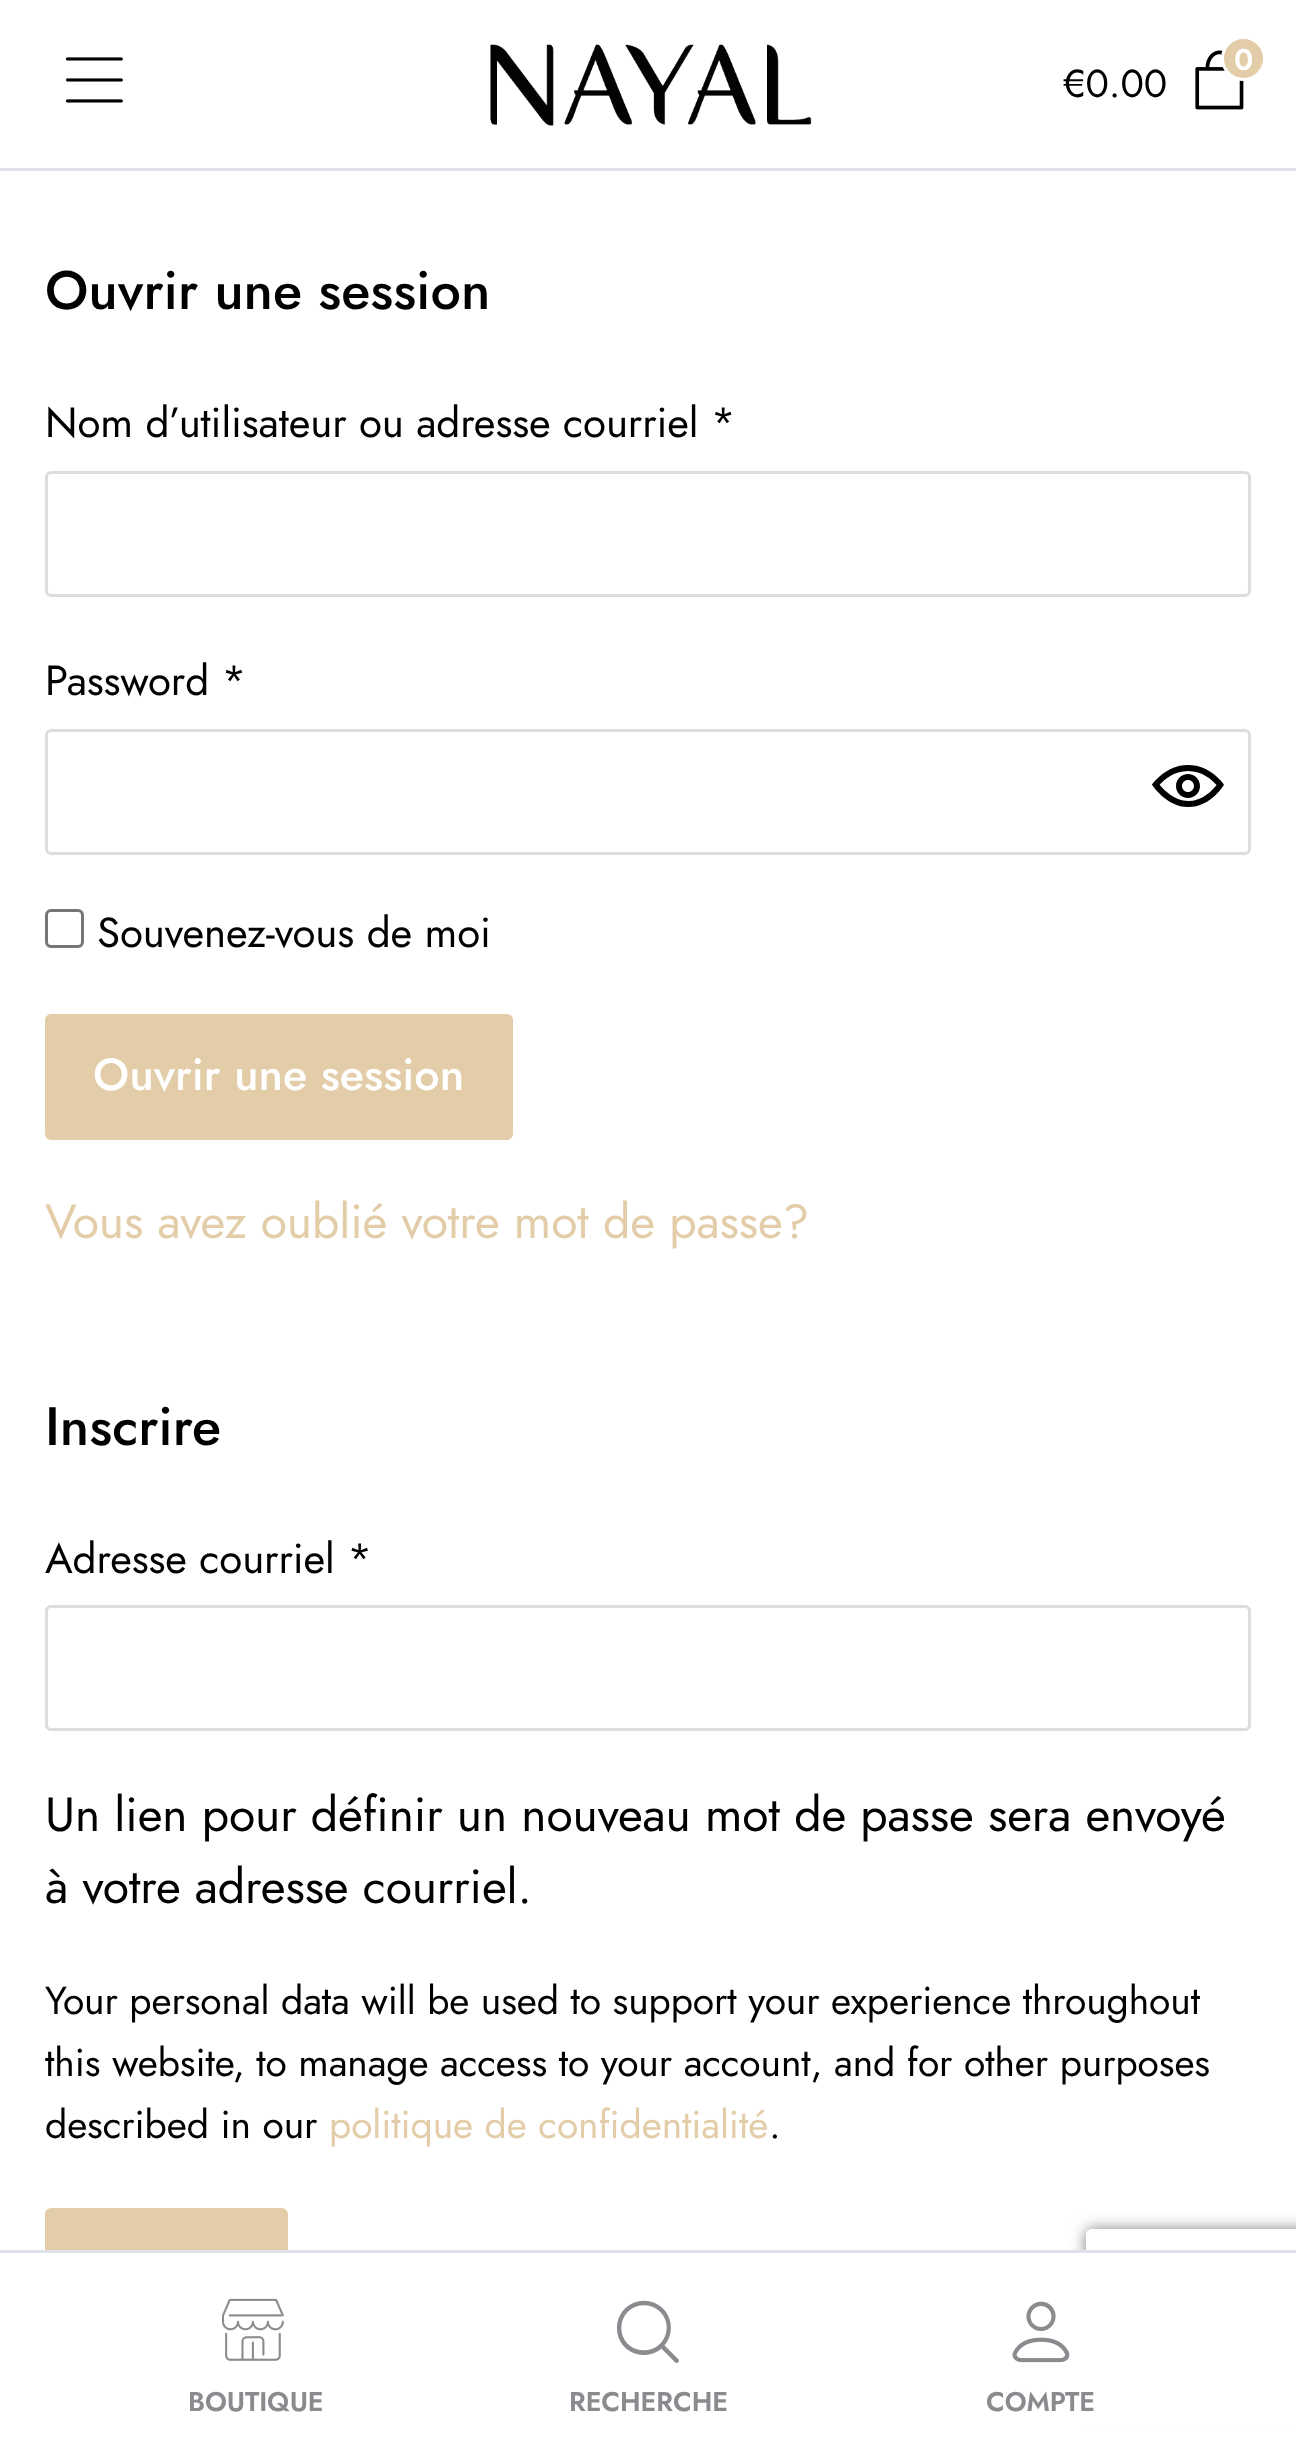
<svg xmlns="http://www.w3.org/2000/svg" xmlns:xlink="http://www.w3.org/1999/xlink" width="1296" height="2450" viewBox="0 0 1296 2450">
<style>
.cls-1{font:600 30px Jost;letter-spacing:-0.1px;fill:#ffffff}
.cls-2{font:39px Jost;letter-spacing:-0.1px;fill:#000000}
.cls-3{font:500 54px Jost;fill:#000000}
.cls-4{font:42px Jost;letter-spacing:-0.1px;fill:#000000}
.cls-5{font:500 45px Jost;fill:#ffffff}
.cls-6{font:48px Jost;letter-spacing:-0.1px;fill:#e3cda8}
.cls-7{font:48px Jost;letter-spacing:-0.1px;fill:#000000}
.cls-8{font:39px Jost;letter-spacing:-0.1px;fill:#e3cda8}
.cls-9{font:600 27px Jost;letter-spacing:-0.1px;fill:#8a8b8e}
</style>
<defs>
<clipPath id="clip1"><path d="M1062 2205H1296V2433H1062ZM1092 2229H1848C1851.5 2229 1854 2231.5 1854 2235V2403C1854 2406.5 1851.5 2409 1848 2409H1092C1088.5 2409 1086 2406.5 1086 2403V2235C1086 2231.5 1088.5 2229 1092 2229Z" clip-rule="evenodd"/></clipPath>
</defs>
<rect width="100%" height="100%" fill="#ffffff"/>
<rect fill="#dee0ea" x="0" y="168" width="1296" height="3"/>
<image xlink:href="image0.png" x="65" y="57" width="58" height="46"/>
<image xlink:href="image1.png" x="490" y="44" width="322" height="82"/>
<image xlink:href="image2.png" x="1195" y="50" width="49" height="60"/>
<circle fill="#e3cda8" stroke="#ffffff" stroke-width="3" cx="1243.5" cy="58.5" r="21"/>
<rect fill="none" stroke="#dddddd" stroke-width="3" x="46.5" y="472.5" width="1203" height="123" rx="4.5"/>
<rect fill="none" stroke="#dddddd" stroke-width="3" x="46.5" y="730.5" width="1203" height="123" rx="4.5"/>
<image xlink:href="image3.png" x="1152" y="765" width="72" height="42"/>
<rect fill="none" stroke="#767676" stroke-width="3" x="46.5" y="910.5" width="36" height="36" rx="4.5"/>
<rect fill="#e3cda8" stroke="#e3cda8" stroke-width="3" x="46.5" y="1015.5" width="465" height="123" rx="4.5"/>
<rect fill="none" stroke="#dddddd" stroke-width="3" x="46.5" y="1606.5" width="1203" height="123" rx="4.5"/>
<rect fill="#e3cda8" stroke="#e3cda8" stroke-width="3" x="46.5" y="2209.5" width="240" height="123" rx="4.5"/>
<g clip-path="url(#clip1)">
<rect fill="#808080" filter="blur(7.5px)" x="1086" y="2229" width="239" height="180" rx="6"/>
</g>
<rect fill="#ffffff" x="45" y="2253" width="1251" height="171"/>
<rect fill="#dee0ea" x="0" y="2250" width="1296" height="3"/>
<image xlink:href="image4.png" x="222" y="2298" width="62" height="63"/>
<image xlink:href="image5.png" x="616" y="2300" width="63" height="63"/>
<image xlink:href="image6.png" x="1012" y="2301" width="58" height="62"/>
<text class="cls-1" x="1234" y="70">0</text>
<text class="cls-2" x="1063" y="97">€0.00</text>
<text class="cls-3" x="45" y="309">Ouvrir une session</text>
<text class="cls-4" x="45" y="437">Nom d’utilisateur ou adresse courriel *</text>
<text class="cls-4" x="45" y="695">Password *</text>
<text class="cls-4" x="97" y="947">Souvenez-vous de moi</text>
<text class="cls-5" x="93" y="1090">Ouvrir une session</text>
<text class="cls-6" x="45" y="1238">Vous avez oublié votre mot de passe?</text>
<text class="cls-3" x="45" y="1445">Inscrire</text>
<text class="cls-4" x="45" y="1573">Adresse courriel *</text>
<text class="cls-7"><tspan x="45" y="1831">Un lien pour définir un nouveau mot de passe sera envoyé</tspan><tspan x="45" y="1903">à votre adresse courriel.</tspan></text>
<text class="cls-2"><tspan x="45" y="2014">Your personal data will be used to support your experience throughout</tspan><tspan x="45" y="2076">this website, to manage access to your account, and for other purposes</tspan><tspan x="45" y="2138">described in our</tspan></text>
<text class="cls-8" x="329" y="2138">politique de confidentialité</text>
<text class="cls-2" x="769" y="2138">.</text>
<text class="cls-9" x="188" y="2411">BOUTIQUE</text>
<text class="cls-9" x="569" y="2411">RECHERCHE</text>
<text class="cls-9" x="986" y="2411">COMPTE</text>
</svg>
